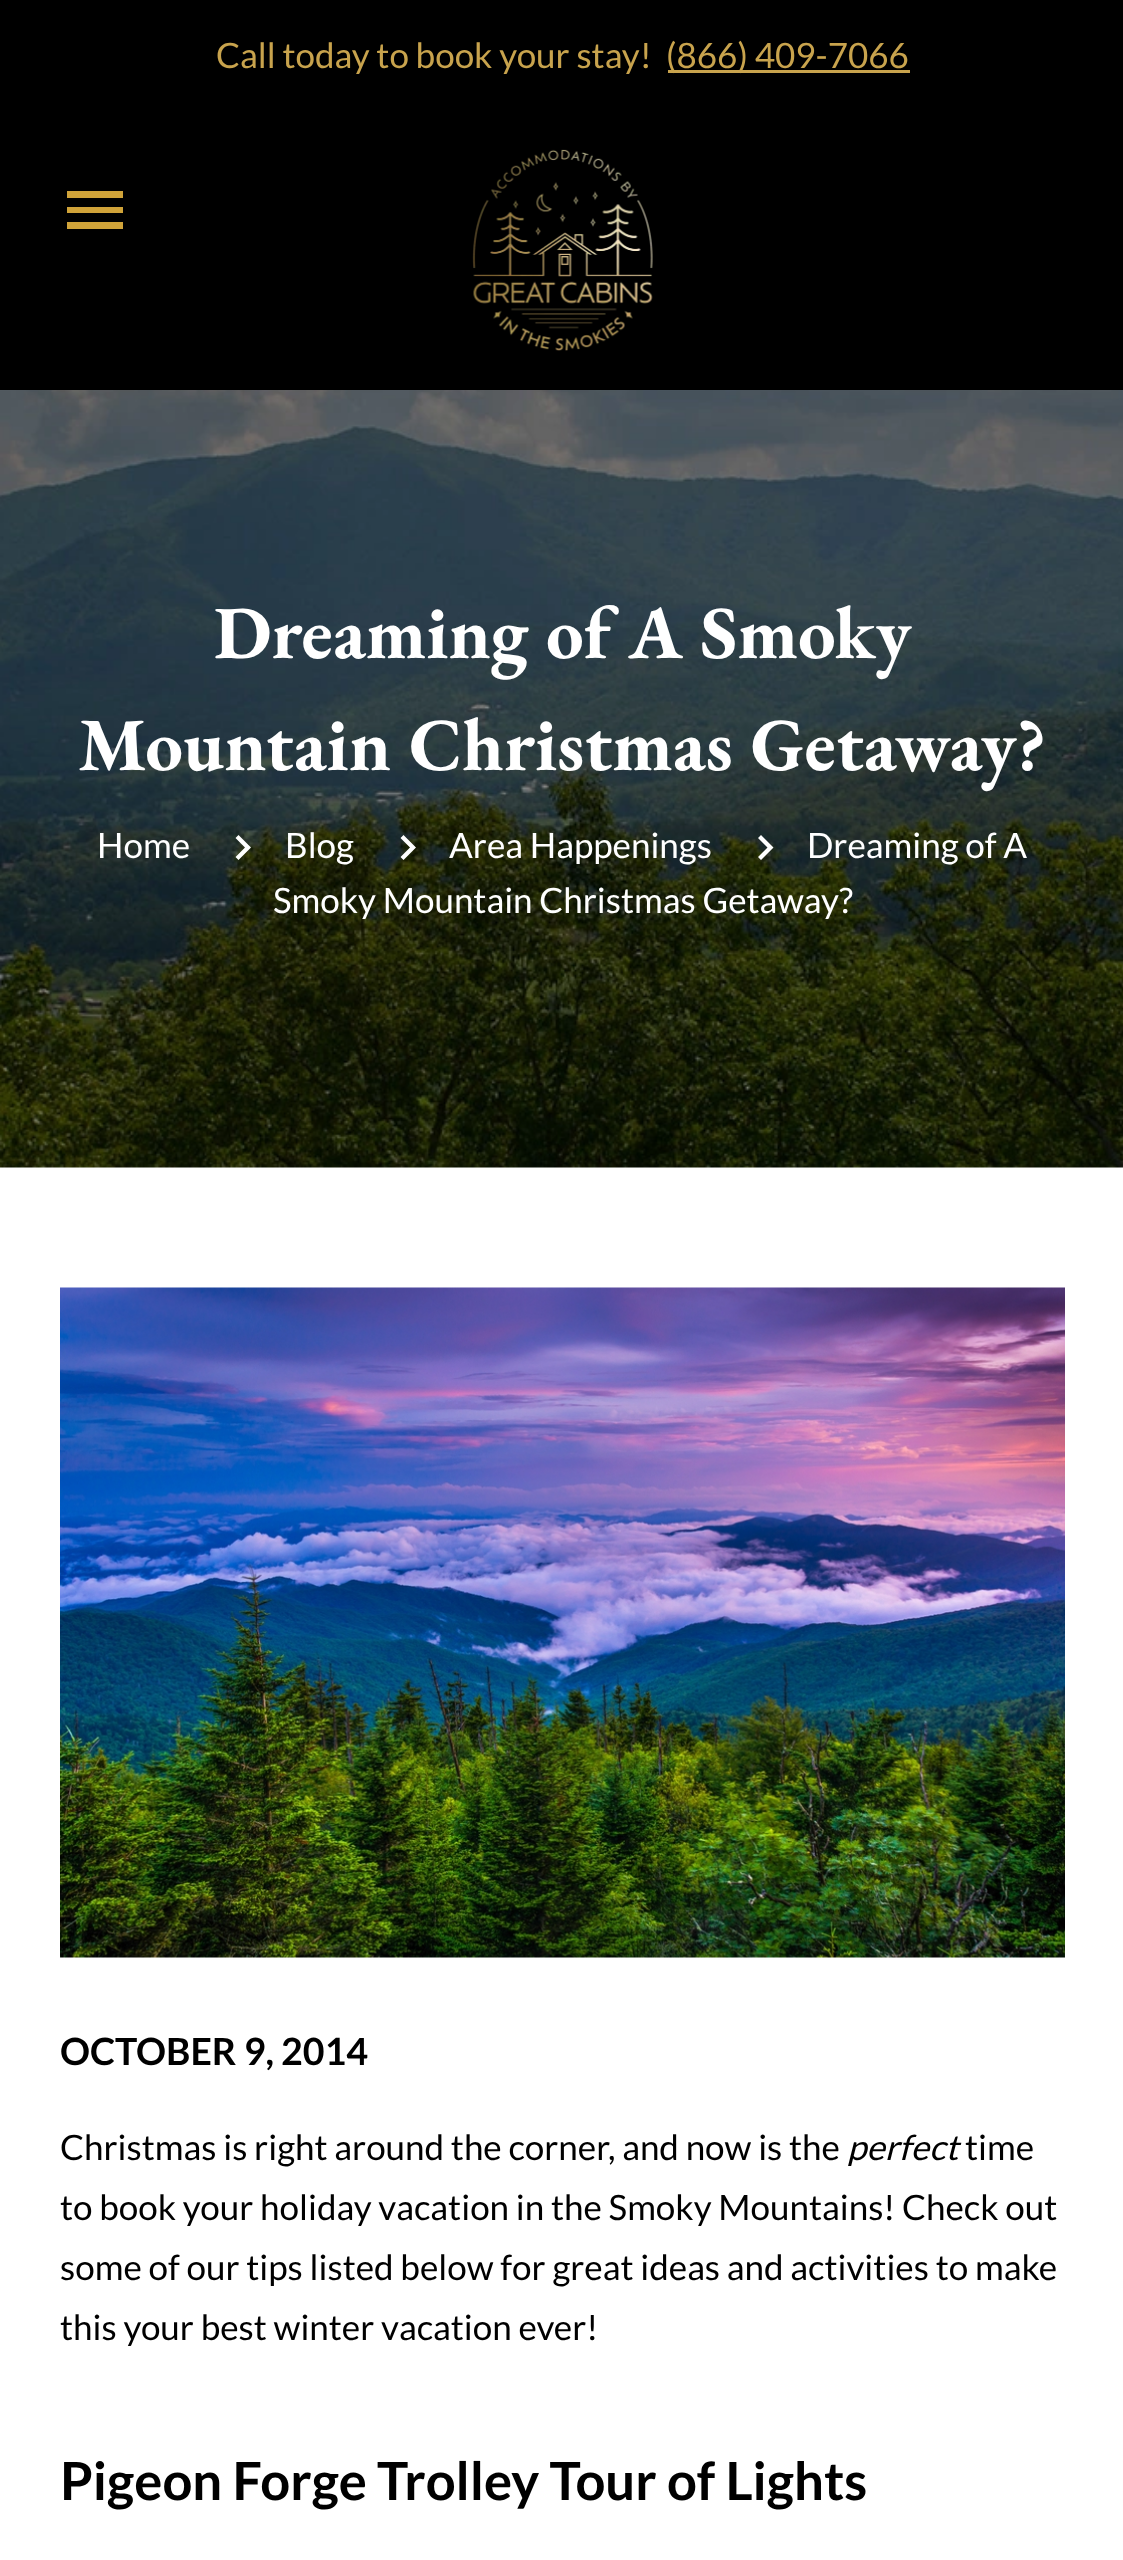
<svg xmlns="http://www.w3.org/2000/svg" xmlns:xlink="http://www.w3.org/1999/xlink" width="1123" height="2560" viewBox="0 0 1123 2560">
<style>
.cls-1{font:35px Lato;fill:#c8a34d}
.cls-2{font:bold 75px EB Garamond;fill:#ffffff}
.cls-3{font:35px Lato;fill:#ffffff}
.cls-4{font:bold 37.5px Lato;fill:#000000}
.cls-5{font:35px Lato;fill:#000000}
.cls-6{font:italic 35px Lato;fill:#000000}
.cls-7{font:bold 52.6px Lato;fill:#000000}
</style>
<rect width="100%" height="100%" fill="#ffffff"/>
<rect fill="#000000" x="0" y="0" width="1123" height="390"/>
<rect fill="#c8a34d" x="668" y="70" width="242" height="3"/>
<path fill="#d0a339" d="M67 191H123V198H67ZM67 213V207H123V213ZM67 229V222H123V229Z"/>
<image xlink:href="image0.png" x="472" y="149" width="181" height="202"/>
<image xlink:href="image1.png" x="0" y="390" width="1123" height="778"/>
<path fill="#ffffff" d="M761 835L773.5 847.5L761 860L758 857L767.5 847.5L758 838Z"/>
<path fill="#ffffff" d="M238.5 835L251 847.5L238.5 860L235.5 857L245 847.5L235.5 838Z"/>
<path fill="#ffffff" d="M403.5 835L416 847.5L403.5 860L400.5 857L410 847.5L400.5 838Z"/>
<image xlink:href="image2.png" x="60" y="1287" width="1005" height="671"/>
<text class="cls-1" x="216" y="68">Call today to book your stay!</text>
<text class="cls-1" x="666" y="68">(866) 409-7066</text>
<text class="cls-2" x="214" y="658">Dreaming of A Smoky</text>
<text class="cls-2" x="78" y="770">Mountain Christmas Getaway?</text>
<text class="cls-3" x="97" y="858">Home</text>
<text class="cls-3" x="807" y="858">Dreaming of A</text>
<text class="cls-3" x="273" y="913">Smoky Mountain Christmas Getaway?</text>
<text class="cls-3" x="285" y="858">Blog</text>
<text class="cls-3" x="449" y="858">Area Happenings</text>
<text class="cls-4" x="60" y="2065">OCTOBER 9, 2014</text>
<text class="cls-5" x="60" y="2160">Christmas is right around the corner, and now is the</text>
<text class="cls-6" x="847" y="2160">perfect</text>
<text class="cls-5" x="965" y="2160">time</text>
<text class="cls-5"><tspan x="60" y="2220">to book your holiday vacation in the Smoky Mountains! Check out</tspan><tspan x="60" y="2280">some of our tips listed below for great ideas and activities to make</tspan><tspan x="60" y="2340">this your best winter vacation ever!</tspan></text>
<text class="cls-7" x="60" y="2500">Pigeon Forge Trolley Tour of Lights</text>
</svg>
